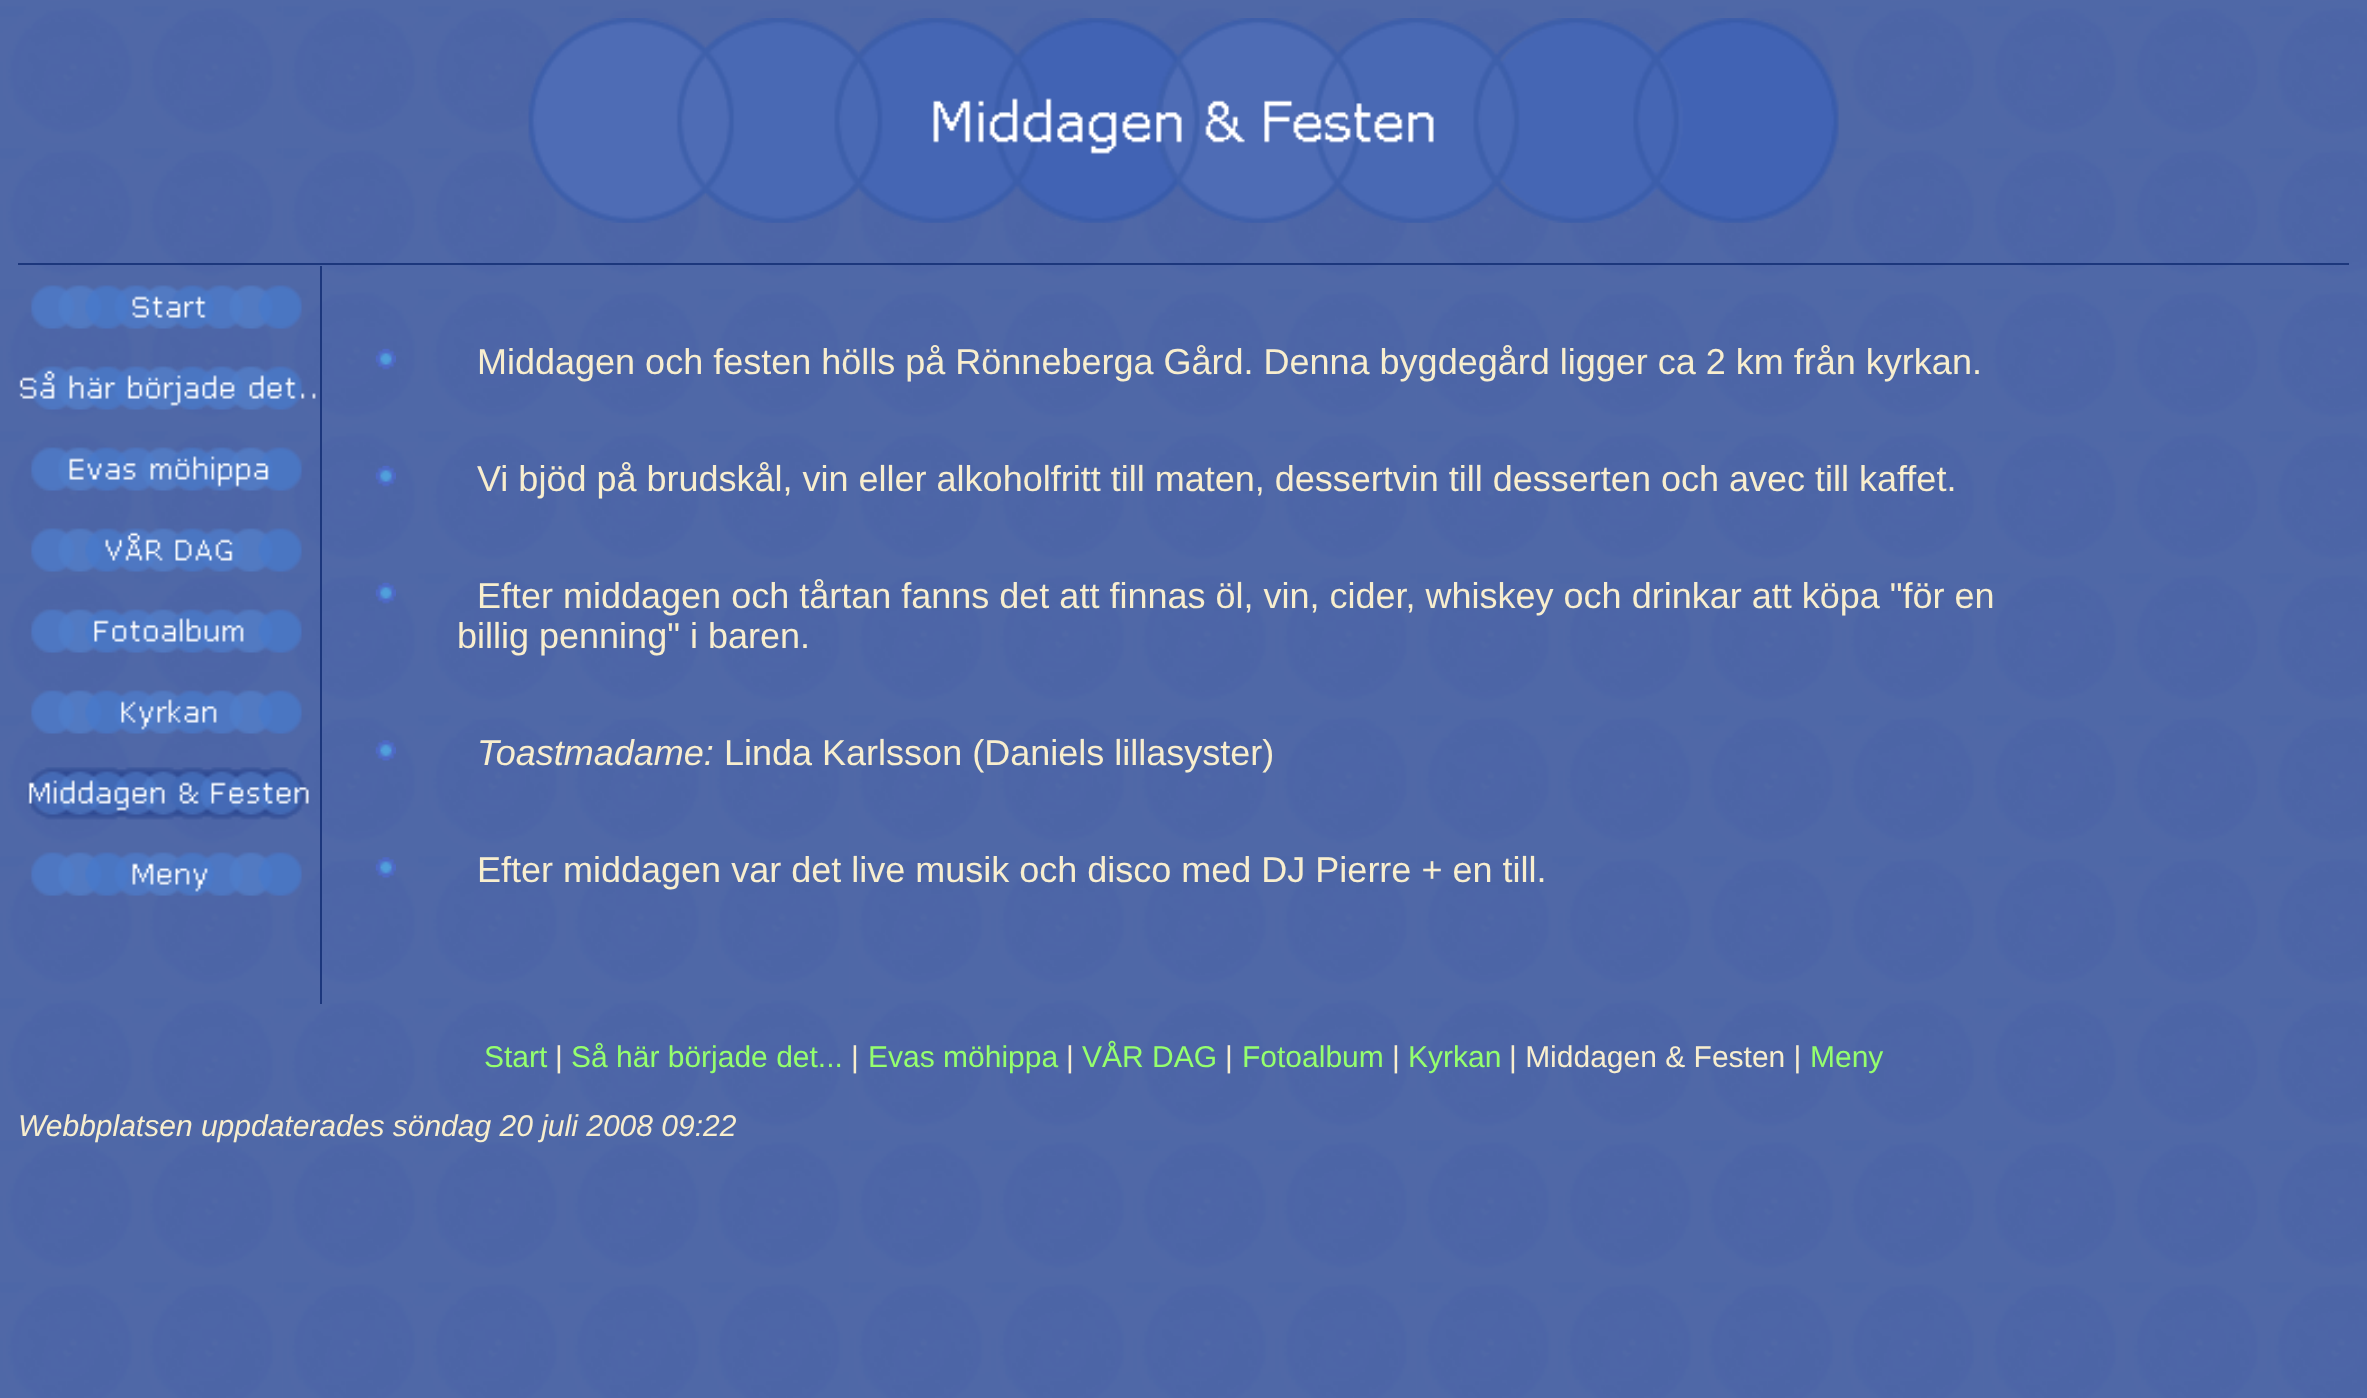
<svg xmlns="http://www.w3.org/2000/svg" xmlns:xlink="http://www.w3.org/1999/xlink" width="2367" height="1398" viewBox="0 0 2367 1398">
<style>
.cls-1{font:36px Liberation Sans;fill:#f8eece}
.cls-2{font:italic 36px Liberation Sans;fill:#f8eece}
.cls-3{font:30px Liberation Sans;fill:#95ff6e}
.cls-4{font:30px Liberation Sans;fill:#f8eece}
.cls-5{font:italic 30px Liberation Sans;fill:#f8eece}
</style>
<rect width="100%" height="100%" fill="#ffffff"/>
<image xlink:href="image0.png" x="0" y="0" width="2367" height="1398"/>
<image xlink:href="image1.png" x="528" y="18" width="1311" height="205"/>
<rect fill="#1c377c" x="18" y="263" width="2331" height="2"/>
<rect fill="#1c377c" x="320" y="266" width="2" height="738"/>
<image xlink:href="image2.png" x="31" y="285" width="271" height="44"/>
<image xlink:href="image3.png" x="19" y="366" width="297" height="44"/>
<image xlink:href="image4.png" x="31" y="447" width="271" height="44"/>
<image xlink:href="image5.png" x="31" y="528" width="271" height="44"/>
<image xlink:href="image6.png" x="31" y="609" width="271" height="44"/>
<image xlink:href="image7.png" x="31" y="690" width="271" height="44"/>
<image xlink:href="image8.png" x="27" y="767" width="282" height="53"/>
<image xlink:href="image9.png" x="31" y="852" width="271" height="44"/>
<image xlink:href="image10.png" x="375" y="348" width="21" height="22"/>
<image xlink:href="image11.png" x="375" y="465" width="21" height="22"/>
<image xlink:href="image12.png" x="375" y="582" width="21" height="22"/>
<image xlink:href="image13.png" x="375" y="740" width="21" height="21"/>
<image xlink:href="image14.png" x="375" y="857" width="21" height="21"/>
<text class="cls-1" x="477" y="374">Middagen och festen hölls på Rönneberga Gård. Denna bygdegård ligger ca 2 km från kyrkan.</text>
<text class="cls-1" x="477" y="491">Vi bjöd på brudskål, vin eller alkoholfritt till maten, dessertvin till desserten och avec till kaffet.</text>
<text class="cls-1" x="477" y="608">Efter middagen och tårtan fanns det att finnas öl, vin, cider, whiskey och drinkar att köpa "för en</text>
<text class="cls-1" x="457" y="648">billig penning" i baren.</text>
<text class="cls-2" x="477" y="765">Toastmadame:</text>
<text class="cls-1" x="724" y="765">Linda Karlsson (Daniels lillasyster)</text>
<text class="cls-1" x="477" y="882">Efter middagen var det live musik och disco med DJ Pierre + en till.</text>
<text class="cls-3" x="484" y="1067">Start</text>
<text class="cls-4" x="555" y="1067">|</text>
<text class="cls-3" x="571" y="1067">Så här började det...</text>
<text class="cls-4" x="851" y="1067">|</text>
<text class="cls-3" x="868" y="1067">Evas möhippa</text>
<text class="cls-4" x="1066" y="1067">|</text>
<text class="cls-3" x="1082" y="1067">VÅR DAG</text>
<text class="cls-4" x="1225" y="1067">|</text>
<text class="cls-3" x="1242" y="1067">Fotoalbum</text>
<text class="cls-4" x="1392" y="1067">|</text>
<text class="cls-3" x="1408" y="1067">Kyrkan</text>
<text class="cls-4" x="1509" y="1067">| Middagen &amp; Festen |</text>
<text class="cls-3" x="1810" y="1067">Meny</text>
<text class="cls-5" x="18" y="1136">Webbplatsen uppdaterades söndag 20 juli 2008 09:22</text>
</svg>
